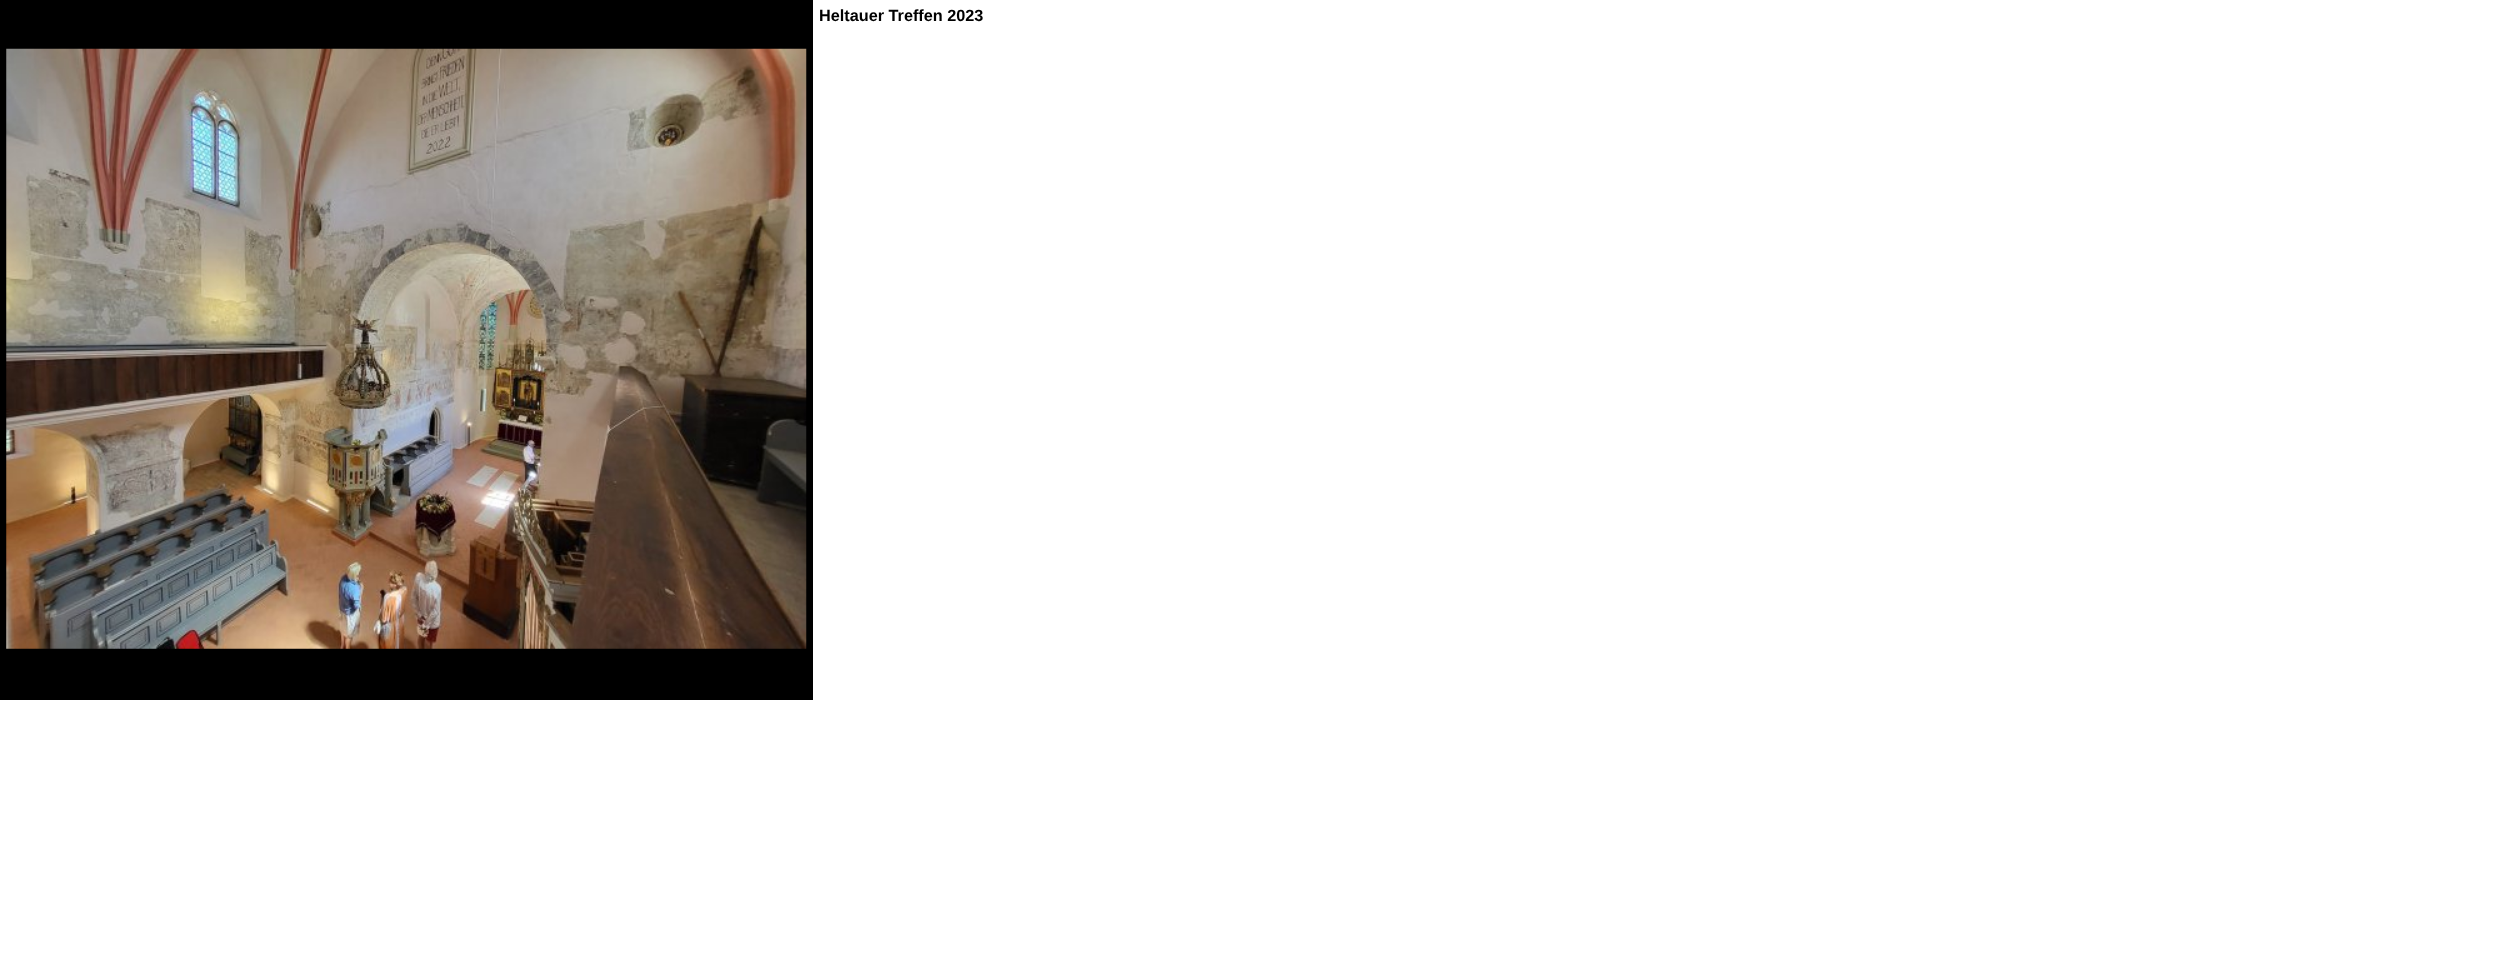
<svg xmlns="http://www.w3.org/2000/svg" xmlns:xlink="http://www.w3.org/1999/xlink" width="2505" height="959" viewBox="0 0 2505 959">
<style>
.cls-1{font:bold 16.25px Liberation Sans;fill:#000000}
</style>
<rect width="100%" height="100%" fill="#ffffff"/>
<rect fill="#000000" x="0" y="0" width="813" height="700"/>
<image xlink:href="image0.png" x="6" y="48" width="801" height="601"/>
<text class="cls-1" x="819" y="21">Heltauer Treffen 2023</text>
</svg>
